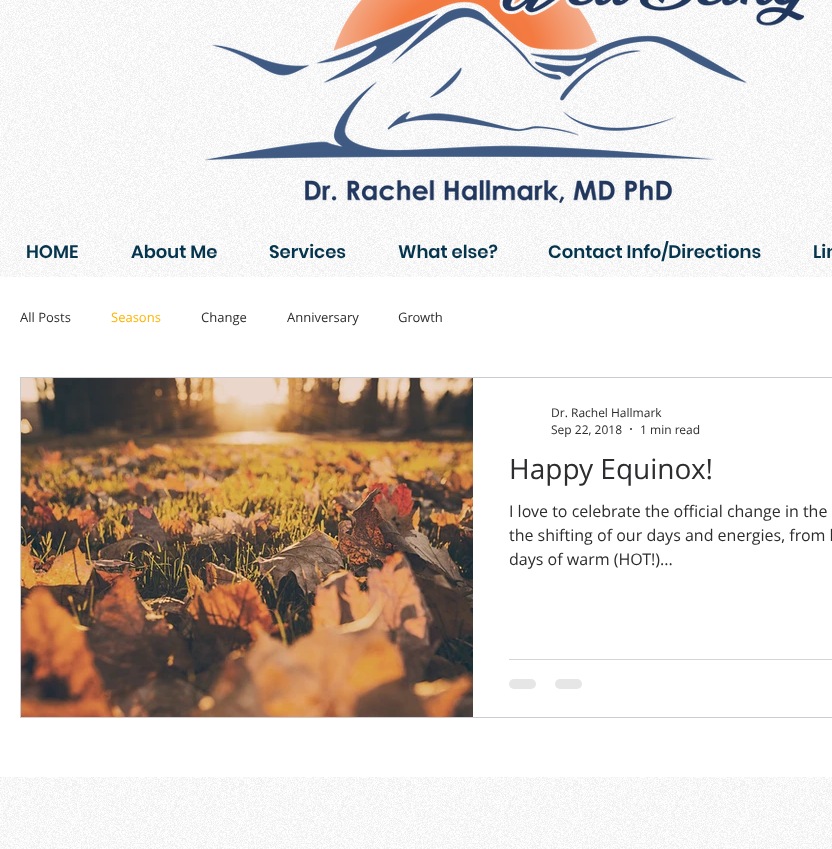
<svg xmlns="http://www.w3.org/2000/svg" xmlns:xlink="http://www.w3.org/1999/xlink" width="832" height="849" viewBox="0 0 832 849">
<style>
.cls-1{font:600 18px Poppins;fill:#05344d}
.cls-2{font:13px Open Sans;fill:#2d2d2f}
.cls-3{font:13px Open Sans;fill:#ffb400}
.cls-4{font:12px Open Sans;fill:#2d2d2f}
.cls-5{font:28px Open Sans;fill:#2d2d2f}
.cls-6{font:16px Open Sans;fill:#2d2d2f}
</style>
<rect width="100%" height="100%" fill="#ffffff"/>
<image xlink:href="image0.png" x="0" y="0" width="832" height="277"/>
<image xlink:href="image1.png" x="204" y="0" width="600" height="203"/>
<rect fill="none" stroke="#caccd1" x="20.5" y="377.5" width="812" height="340"/>
<image xlink:href="image2.png" x="21" y="378" width="452" height="339"/>
<circle fill="#2d2d2f" cx="631" cy="429" r="1"/>
<rect fill="#d5d5d5" x="509" y="659" width="323" height="1"/>
<rect fill="#e6e6e6" x="509" y="679" width="27" height="10" rx="5"/>
<rect fill="#e6e6e6" x="555" y="679" width="27" height="10" rx="5"/>
<image xlink:href="image3.png" x="0" y="777" width="832" height="72"/>
<text class="cls-1" x="26" y="258">HOME</text>
<text class="cls-1" x="131" y="258">About Me</text>
<text class="cls-1" x="269" y="258">Services</text>
<text class="cls-1" x="398" y="258">What else?</text>
<text class="cls-1" x="548" y="258">Contact Info/Directions</text>
<text class="cls-1" x="813" y="258">Lin</text>
<text class="cls-2" x="20" y="322">All Posts</text>
<text class="cls-3" x="111" y="322">Seasons</text>
<text class="cls-2" x="201" y="322">Change</text>
<text class="cls-2" x="287" y="322">Anniversary</text>
<text class="cls-2" x="398" y="322">Growth</text>
<text class="cls-4"><tspan x="551" y="417">Dr. Rachel Hallmark</tspan><tspan x="551" y="434">Sep 22, 2018</tspan></text>
<text class="cls-4" x="640" y="434">1 min read</text>
<text class="cls-5" x="509" y="479">Happy Equinox!</text>
<text class="cls-6"><tspan x="509" y="517">I love to celebrate the official change in the</tspan><tspan x="509" y="541">the shifting of our days and energies, from l</tspan><tspan x="509" y="565">days of warm (HOT!)...</tspan></text>
</svg>
